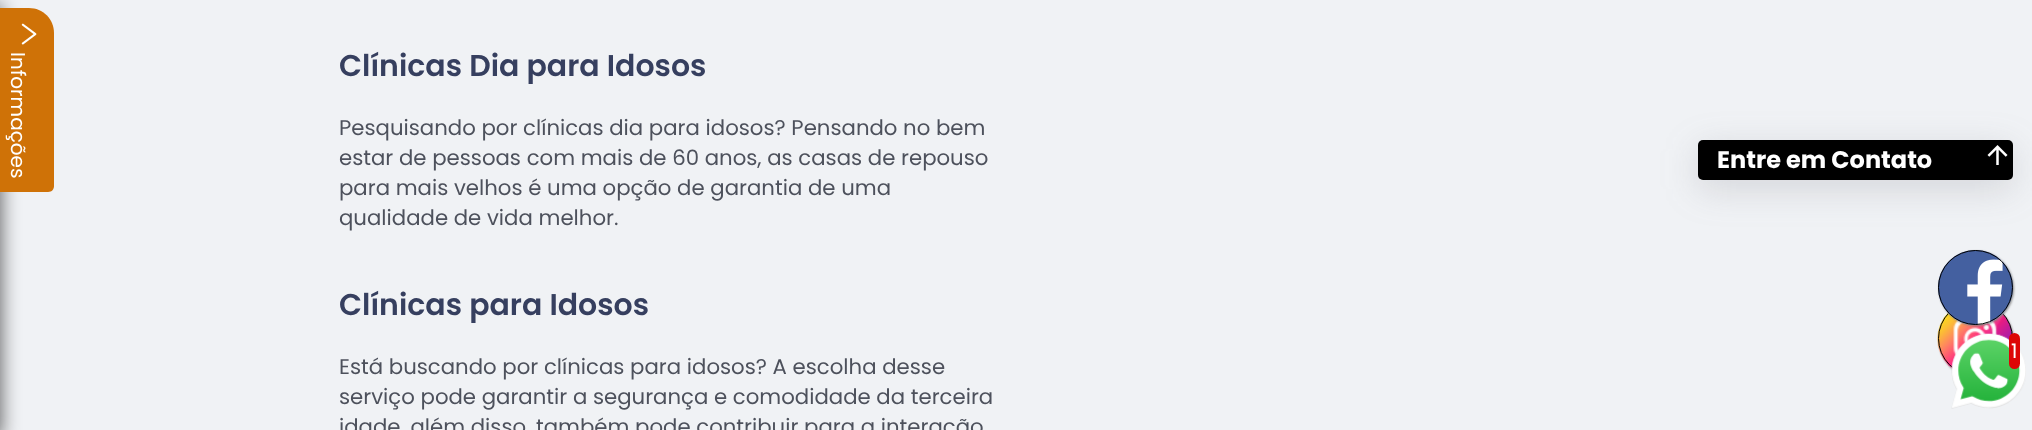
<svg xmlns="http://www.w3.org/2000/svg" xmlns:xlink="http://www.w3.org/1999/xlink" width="2032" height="430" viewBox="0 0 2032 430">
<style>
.cls-1{font:600 30px Poppins;fill:#363f5f}
.cls-2{font:21.25px Poppins;fill:#4d515c}
.cls-3{font:20px Poppins;fill:#ffffff}
.cls-4{font:bold 24px Poppins;fill:#ffffff}
</style>
<rect width="100%" height="100%" fill="#f0f2f5"/>
<rect fill="#000000" fill-opacity="0.6" filter="blur(9.5px)" x="-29" y="5" width="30" height="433"/>
<path fill="#cf7207" d="M54 33V186C54 189 52 192 48 192H-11V8H29C43 8 54 19 54 33Z"/>
<image xlink:href="image0.png" x="21" y="23" width="16" height="22"/>
<rect fill="#64646f" fill-opacity="0.2" filter="blur(18px)" x="1698" y="149" width="315" height="40" rx="5"/>
<rect fill="#000000" x="1698" y="140" width="315" height="40" rx="5"/>
<image xlink:href="image1.png" x="1987" y="145" width="21" height="20"/>
<rect fill="#888888" filter="blur(1px)" x="1939" y="303" width="75" height="75" rx="37.5"/>
<image xlink:href="image4.png" x="1937" y="312" width="76" height="57"/>
<circle fill="none" stroke="#000000" cx="1975.5" cy="338.5" r="37"/>
<image xlink:href="image2.png" x="1951" y="333" width="75" height="76"/>
<rect fill="#dd0505" x="2009" y="333" width="11" height="36" rx="5.5"/>
<rect fill="#888888" filter="blur(1px)" x="1939" y="251" width="75" height="75" rx="37.5"/>
<circle fill="#ffffff" cx="1975.5" cy="287.5" r="37.5"/>
<image xlink:href="image3.png" x="1938" y="250" width="75" height="75"/>
<circle fill="none" stroke="#000000" cx="1975.5" cy="287.5" r="37"/>
<text class="cls-1" x="339" y="76">Clínicas Dia para Idosos</text>
<text class="cls-2"><tspan x="339" y="135">Pesquisando por clínicas dia para idosos? Pensando no bem</tspan><tspan x="339" y="165">estar de pessoas com mais de 60 anos, as casas de repouso</tspan><tspan x="339" y="195">para mais velhos é uma opção de garantia de uma</tspan><tspan x="339" y="225">qualidade de vida melhor.</tspan></text>
<text class="cls-1" x="339" y="315">Clínicas para Idosos</text>
<text class="cls-2"><tspan x="339" y="374">Está buscando por clínicas para idosos? A escolha desse</tspan><tspan x="339" y="404">serviço pode garantir a segurança e comodidade da terceira</tspan><tspan x="339" y="434">idade, além disso, também pode contribuir para a interação</tspan></text>
<text class="cls-3" x="11" y="52" transform="rotate(90 11 52)">Informações</text>
<text class="cls-4" x="1717" y="168">Entre em Contato</text>
<text class="cls-3" x="2011" y="358">1</text>
</svg>
